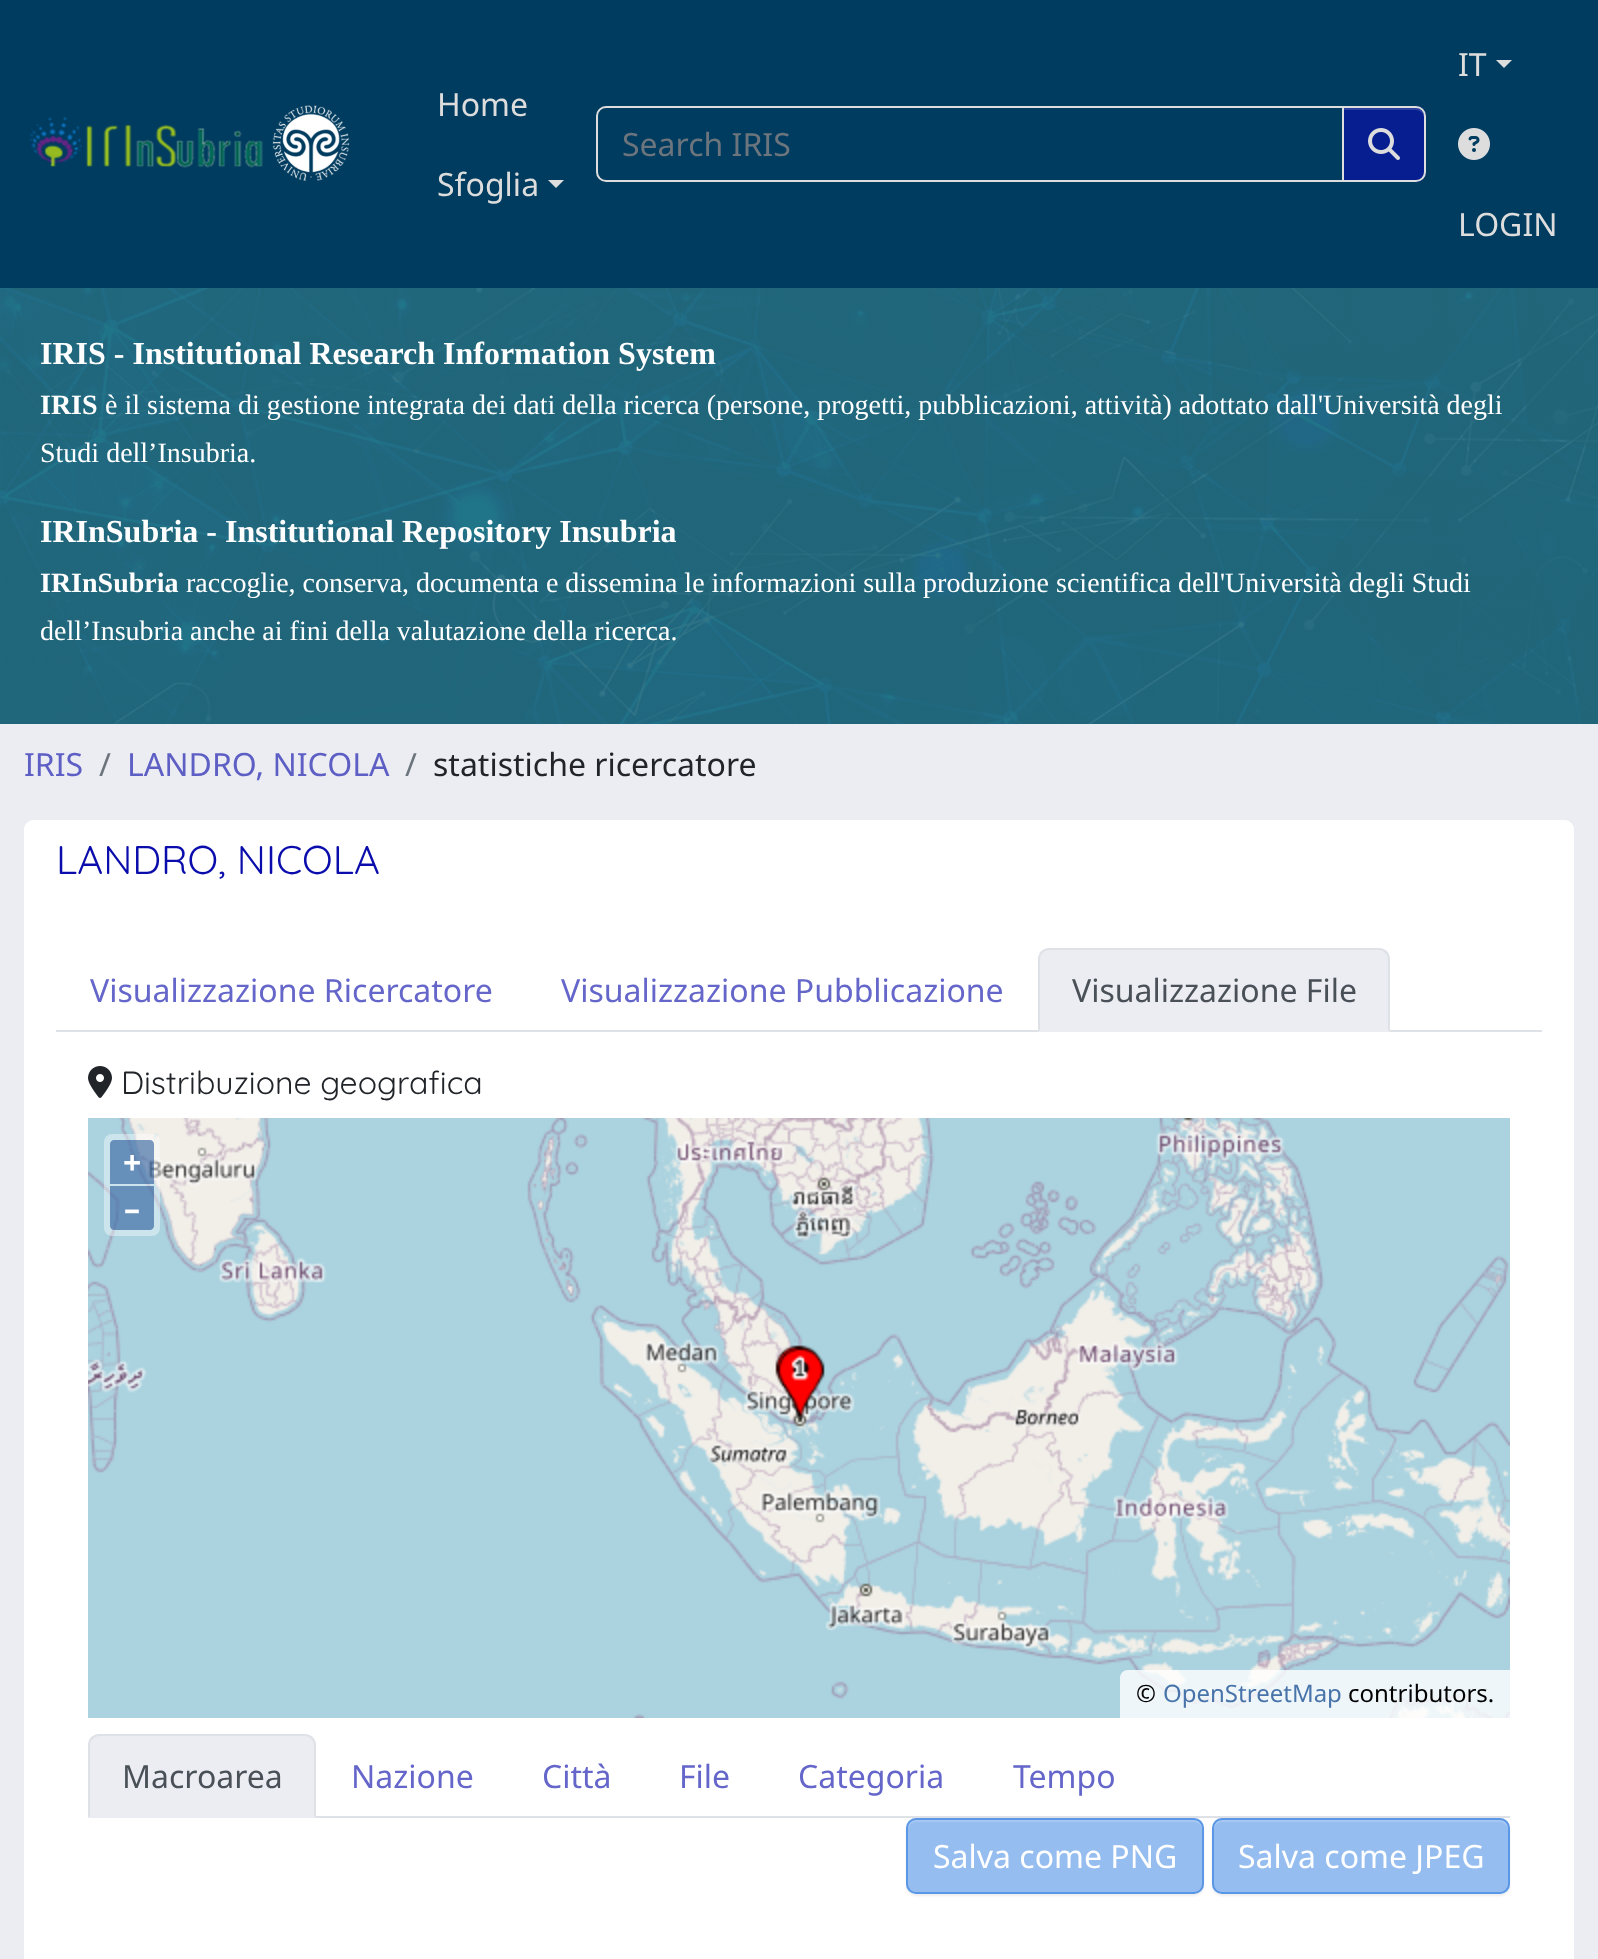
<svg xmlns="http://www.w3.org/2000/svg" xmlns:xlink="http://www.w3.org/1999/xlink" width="1598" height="1959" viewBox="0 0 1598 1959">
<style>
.cls-1{font:32px Noto Sans;fill:#dddddd}
.cls-2{font:32px Noto Sans;fill:#6c757d}
.cls-3{font:bold 32px Liberation Serif;fill:#ffffff}
.cls-4{font:bold 28px Liberation Serif;fill:#ffffff}
.cls-5{font:28px Liberation Serif;fill:#ffffff}
.cls-6{font:32px Noto Sans;fill:#5e5fc5}
.cls-7{font:32px Noto Sans;fill:#212529}
.cls-8{font:300 40px Quicksand;fill:#0a0cab}
.cls-9{font:32px Noto Sans;fill:#6566ca}
.cls-10{font:32px Noto Sans;fill:#495057}
.cls-11{font:300 32px Quicksand;fill:#212529}
.cls-12{font:bold 32px Noto Sans;fill:#ffffff}
.cls-13{font:24px Noto Sans;fill:#000000}
.cls-14{font:24px Noto Sans;fill:#4874aa}
.cls-15{font:32px Noto Sans;fill:#ffffff}
</style>
<defs>
<clipPath id="clip1"><path d="M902 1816H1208V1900H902ZM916 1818H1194C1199.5 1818 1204 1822.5 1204 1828V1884C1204 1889.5 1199.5 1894 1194 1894H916C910.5 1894 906 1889.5 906 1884V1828C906 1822.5 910.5 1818 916 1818Z" clip-rule="evenodd"/></clipPath>
<clipPath id="clip2"><path d="M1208 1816H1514V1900H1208ZM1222 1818H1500C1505.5 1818 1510 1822.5 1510 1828V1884C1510 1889.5 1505.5 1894 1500 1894H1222C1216.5 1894 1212 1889.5 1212 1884V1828C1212 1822.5 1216.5 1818 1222 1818Z" clip-rule="evenodd"/></clipPath>
</defs>
<rect width="100%" height="100%" fill="#ecedf2"/>
<rect fill="#003c5f" x="0" y="0" width="1598" height="288"/>
<image xlink:href="image0.png" x="29" y="105" width="321" height="76"/>
<path fill="#dddddd" d="M548 180H564L556 188Z"/>
<path fill="none" stroke="#dddddd" stroke-width="2" d="M606 107H1343V181H606C601 181 597 177 597 172V116C597 111 601 107 606 107Z"/>
<path fill="#0a0cab" fill-opacity="0.63" d="M1342 106H1416C1421.5 106 1426 110.5 1426 116V172C1426 177.5 1421.5 182 1416 182H1342Z"/>
<path fill="#2c40a0" d="M1344 110H1416C1420 110 1424 114 1424 118V116C1424 112 1420 108 1416 108H1344Z"/>
<path fill="none" stroke="#dddddd" stroke-width="2" d="M1343 107H1416C1421 107 1425 111 1425 116V172C1425 177 1421 181 1416 181H1343Z"/>
<image xlink:href="image1.png" x="1368" y="128" width="32" height="32"/>
<path fill="#dddddd" d="M1496 60H1512L1504 68Z"/>
<image xlink:href="image2.png" x="1458" y="128" width="32" height="32"/>
<image xlink:href="image3.png" x="0" y="288" width="1598" height="436"/>
<rect fill="#ffffff" x="24" y="820" width="1550" height="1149" rx="10"/>
<path fill="#ffffff" d="M34 820H1564C1569.5 820 1574 824.5 1574 830V916H24V830C24 824.5 28.5 820 34 820Z"/>
<rect fill="#dee2e6" x="56" y="1030" width="1486" height="2"/>
<path fill="#ecedf2" d="M1050 948H1378C1384.5 948 1390 953.5 1390 960V1032H1038V960C1038 953.5 1043.5 948 1050 948Z"/>
<path fill="#dee2e6" d="M1050 948C1046 948 1044 949 1041 951L1043 953C1044 951 1047 950 1050 950H1378C1381 950 1384 951 1385 953L1387 951C1384 949 1382 948 1378 948Z"/>
<path fill="#dee2e6" d="M1390 1032V960C1390 956 1389 954 1387 951L1385 953C1387 954 1388 957 1388 960V1030Z"/>
<path fill="#ecedf2" d="M1390 1032L1388 1030H1040L1038 1032Z"/>
<path fill="#dee2e6" d="M1038 1032L1040 1030V960C1040 957 1041 954 1043 953L1041 951C1039 954 1038 956 1038 960Z"/>
<image xlink:href="image4.png" x="88" y="1066" width="24" height="32"/>
<image xlink:href="image5.png" x="88" y="1118" width="1422" height="600"/>
<rect fill="#ffffff" fill-opacity="0.4" x="104" y="1134" width="56" height="102" rx="8"/>
<path fill="#003c88" fill-opacity="0.5" d="M114 1140H150C152 1140 154 1142 154 1144V1184H110V1144C110 1142 112 1140 114 1140Z"/>
<path fill="#003c88" fill-opacity="0.5" d="M110 1186H154V1226C154 1228 152 1230 150 1230H114C112 1230 110 1228 110 1226Z"/>
<path fill="#ffffff" fill-opacity="0.8" d="M1128 1670H1510V1718H1120V1678C1120 1673.5 1123.5 1670 1128 1670Z"/>
<rect fill="#dee2e6" x="316" y="1816" width="1194" height="2"/>
<path fill="#ecedf2" d="M100 1734H304C310.5 1734 316 1739.5 316 1746V1818H88V1746C88 1739.5 93.5 1734 100 1734Z"/>
<path fill="#dee2e6" d="M100 1734C96 1734 94 1735 91 1737L93 1739C94 1737 97 1736 100 1736H304C307 1736 310 1737 311 1739L313 1737C310 1735 308 1734 304 1734Z"/>
<path fill="#dee2e6" d="M316 1818V1746C316 1742 315 1740 313 1737L311 1739C313 1740 314 1743 314 1746V1816Z"/>
<path fill="#ecedf2" d="M316 1818L314 1816H90L88 1818Z"/>
<path fill="#dee2e6" d="M88 1818L90 1816V1746C90 1743 91 1740 93 1739L91 1737C89 1740 88 1742 88 1746Z"/>
<g clip-path="url(#clip1)">
<rect fill="#000000" fill-opacity="0.07" filter="blur(1px)" x="906" y="1820" width="298" height="76" rx="10"/>
</g>
<rect fill="#0c65db" fill-opacity="0.43" x="906" y="1818" width="298" height="76" rx="10"/>
<path fill="#a6c7f2" d="M916 1822H1194C1198 1822 1202 1826 1202 1830V1828C1202 1824 1198 1820 1194 1820H916C912 1820 908 1824 908 1828V1830C908 1826 912 1822 916 1822Z"/>
<rect fill="none" stroke="#0c65db" stroke-opacity="0.43" stroke-width="2" x="907" y="1819" width="296" height="74" rx="9"/>
<g clip-path="url(#clip2)">
<rect fill="#000000" fill-opacity="0.07" filter="blur(1px)" x="1212" y="1820" width="298" height="76" rx="10"/>
</g>
<rect fill="#0c65db" fill-opacity="0.43" x="1212" y="1818" width="298" height="76" rx="10"/>
<path fill="#a6c7f2" d="M1222 1822H1500C1504 1822 1508 1826 1508 1830V1828C1508 1824 1504 1820 1500 1820H1222C1218 1820 1214 1824 1214 1828V1830C1214 1826 1218 1822 1222 1822Z"/>
<rect fill="none" stroke="#0c65db" stroke-opacity="0.43" stroke-width="2" x="1213" y="1819" width="296" height="74" rx="9"/>
<text class="cls-1" x="437" y="116">Home</text>
<text class="cls-1" x="437" y="196">Sfoglia</text>
<text class="cls-2" x="622" y="156">Search IRIS</text>
<text class="cls-1" x="1458" y="76">IT</text>
<text class="cls-1" x="1458" y="236">LOGIN</text>
<text class="cls-3" x="40" y="364">IRIS - Institutional Research Information System</text>
<text class="cls-4" x="40" y="414">IRIS</text>
<text class="cls-5" x="105" y="414">è il sistema di gestione integrata dei dati della ricerca (persone, progetti, pubblicazioni, attività) adottato dall'Università degli</text>
<text class="cls-5" x="40" y="462">Studi dell’Insubria.</text>
<text class="cls-3" x="40" y="542">IRInSubria - Institutional Repository Insubria</text>
<text class="cls-4" x="40" y="592">IRInSubria</text>
<text class="cls-5" x="186" y="592">raccoglie, conserva, documenta e dissemina le informazioni sulla produzione scientifica dell'Università degli Studi</text>
<text class="cls-5" x="40" y="640">dell’Insubria anche ai fini della valutazione della ricerca.</text>
<text class="cls-6" x="24" y="776">IRIS</text>
<text class="cls-2" x="99" y="776">/</text>
<text class="cls-6" x="127" y="776">LANDRO, NICOLA</text>
<text class="cls-2" x="405" y="776">/</text>
<text class="cls-7" x="433" y="776">statistiche ricercatore</text>
<text class="cls-8" x="56" y="874">LANDRO, NICOLA</text>
<text class="cls-9" x="90" y="1002">Visualizzazione Ricercatore</text>
<text class="cls-9" x="561" y="1002">Visualizzazione Pubblicazione</text>
<text class="cls-10" x="1072" y="1002">Visualizzazione File</text>
<text class="cls-11" x="121" y="1094">Distribuzione geografica</text>
<text class="cls-12" x="123" y="1174">+</text>
<text class="cls-12" x="124" y="1220">–</text>
<text class="cls-13" x="1136" y="1702">©</text>
<text class="cls-14" x="1163" y="1702">OpenStreetMap</text>
<text class="cls-13" x="1348" y="1702">contributors.</text>
<text class="cls-10" x="122" y="1788">Macroarea</text>
<text class="cls-9" x="351" y="1788">Nazione</text>
<text class="cls-9" x="542" y="1788">Città</text>
<text class="cls-9" x="679" y="1788">File</text>
<text class="cls-9" x="798" y="1788">Categoria</text>
<text class="cls-9" x="1013" y="1788">Tempo</text>
<text class="cls-15" x="933" y="1868">Salva come PNG</text>
<text class="cls-15" x="1238" y="1868">Salva come JPEG</text>
</svg>
